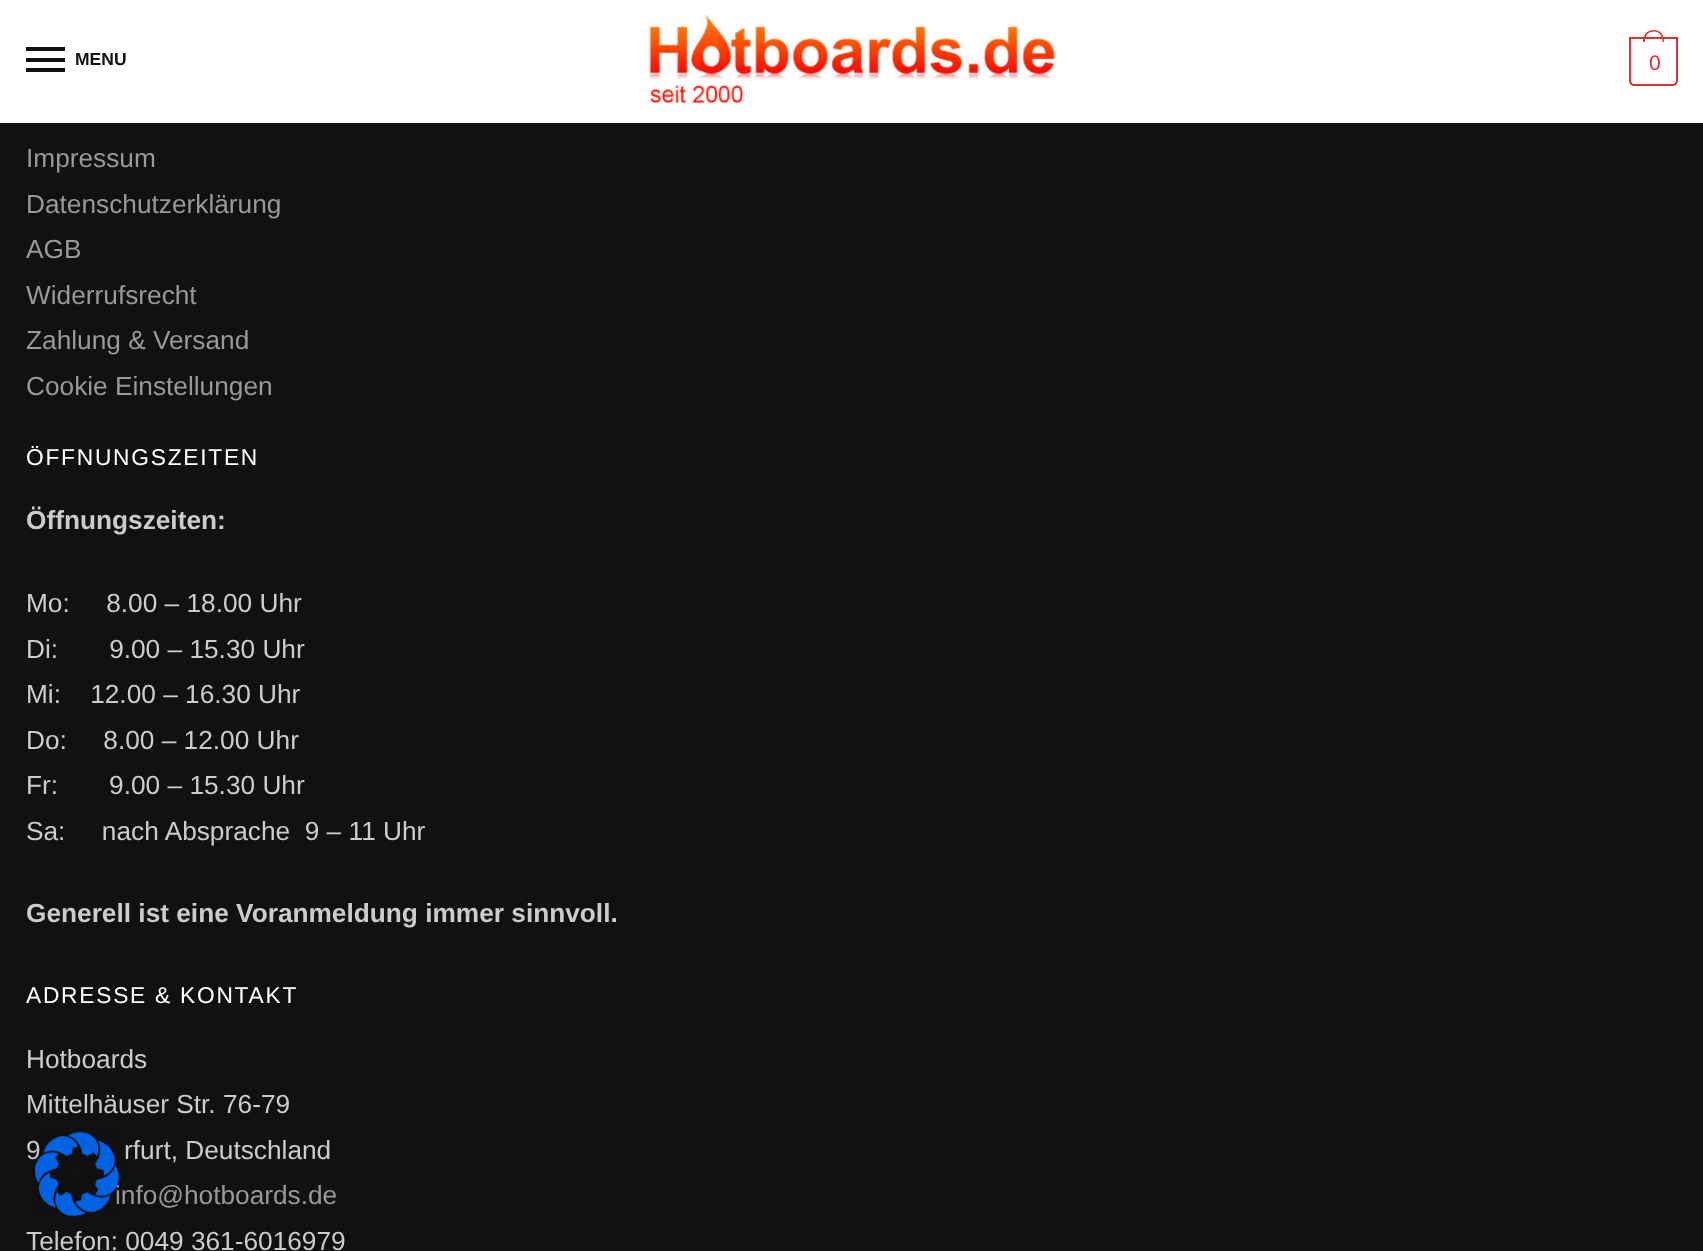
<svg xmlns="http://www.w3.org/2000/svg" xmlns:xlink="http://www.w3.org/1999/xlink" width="1703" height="1251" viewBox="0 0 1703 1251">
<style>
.cls-1{font:bold 17.5px Liberation Sans;fill:#111111}
.cls-2{font:21px Liberation Sans;letter-spacing:-1px;fill:#dd3333}
.cls-3{font:26.25px Liberation Sans;fill:#999999}
.cls-4{font:22.75px Liberation Sans;letter-spacing:1.75px;fill:#ffffff}
.cls-5{font:bold 26.25px Liberation Sans;fill:#cccccc}
.cls-6{font:26.25px Liberation Sans;fill:#cccccc}
</style>
<rect width="100%" height="100%" fill="#111111"/>
<rect fill="#ffffff" x="0" y="0" width="1703" height="123"/>
<rect fill="#111111" x="26" y="47" width="39" height="4"/>
<rect fill="#111111" x="26" y="58" width="39" height="4"/>
<rect fill="#111111" x="26" y="68" width="39" height="4"/>
<image xlink:href="image0.png" x="647" y="13" width="409" height="93"/>
<path fill="none" stroke="#dd3333" stroke-width="2" d="M1630 38H1677V81C1677 83 1675 85 1673 85H1634C1632 85 1630 83 1630 81Z"/>
<path fill="#dd3333" fill-rule="evenodd" d="M1654 30C1661 30 1664 35.5 1664 42H1643C1643 35.5 1646.5 30 1654 30ZM1654 31.5C1660 31.5 1662.5 36.5 1662.5 42H1645C1645 36.5 1647.5 31.5 1654 31.5Z"/>
<text class="cls-1" x="75" y="65">MENU</text>
<text class="cls-2" x="1649" y="70">0</text>
<text class="cls-3"><tspan x="26" y="167">Impressum</tspan><tspan x="26" y="213">Datenschutzerklärung</tspan><tspan x="26" y="258">AGB</tspan><tspan x="26" y="304">Widerrufsrecht</tspan><tspan x="26" y="349">Zahlung &amp; Versand</tspan><tspan x="26" y="395">Cookie Einstellungen</tspan></text>
<text class="cls-4" x="26" y="465">ÖFFNUNGSZEITEN</text>
<text class="cls-5" x="26" y="529">Öffnungszeiten:</text>
<text class="cls-6" xml:space="preserve"><tspan x="26" y="612">Mo:     8.00 – 18.00 Uhr</tspan><tspan x="26" y="658">Di:       9.00 – 15.30 Uhr</tspan><tspan x="26" y="703">Mi:    12.00 – 16.30 Uhr</tspan><tspan x="26" y="749">Do:     8.00 – 12.00 Uhr</tspan><tspan x="26" y="794">Fr:       9.00 – 15.30 Uhr</tspan><tspan x="26" y="840">Sa:     nach Absprache  9 – 11 Uhr</tspan></text>
<text class="cls-5" x="26" y="922">Generell ist eine Voranmeldung immer sinnvoll.</text>
<text class="cls-4" x="26" y="1003">ADRESSE &amp; KONTAKT</text>
<text class="cls-6"><tspan x="26" y="1068">Hotboards</tspan><tspan x="26" y="1113">Mittelhäuser Str. 76-79</tspan><tspan x="26" y="1159">9</tspan></text>
<text class="cls-6" x="124" y="1159">rfurt, Deutschland</text>
<text class="cls-3" x="115" y="1204">info@hotboards.de</text>
<text class="cls-6" x="26" y="1250">Telefon: 0049 361-6016979</text>
<image xlink:href="image1.png" x="31" y="1132" width="91" height="85"/>
</svg>
